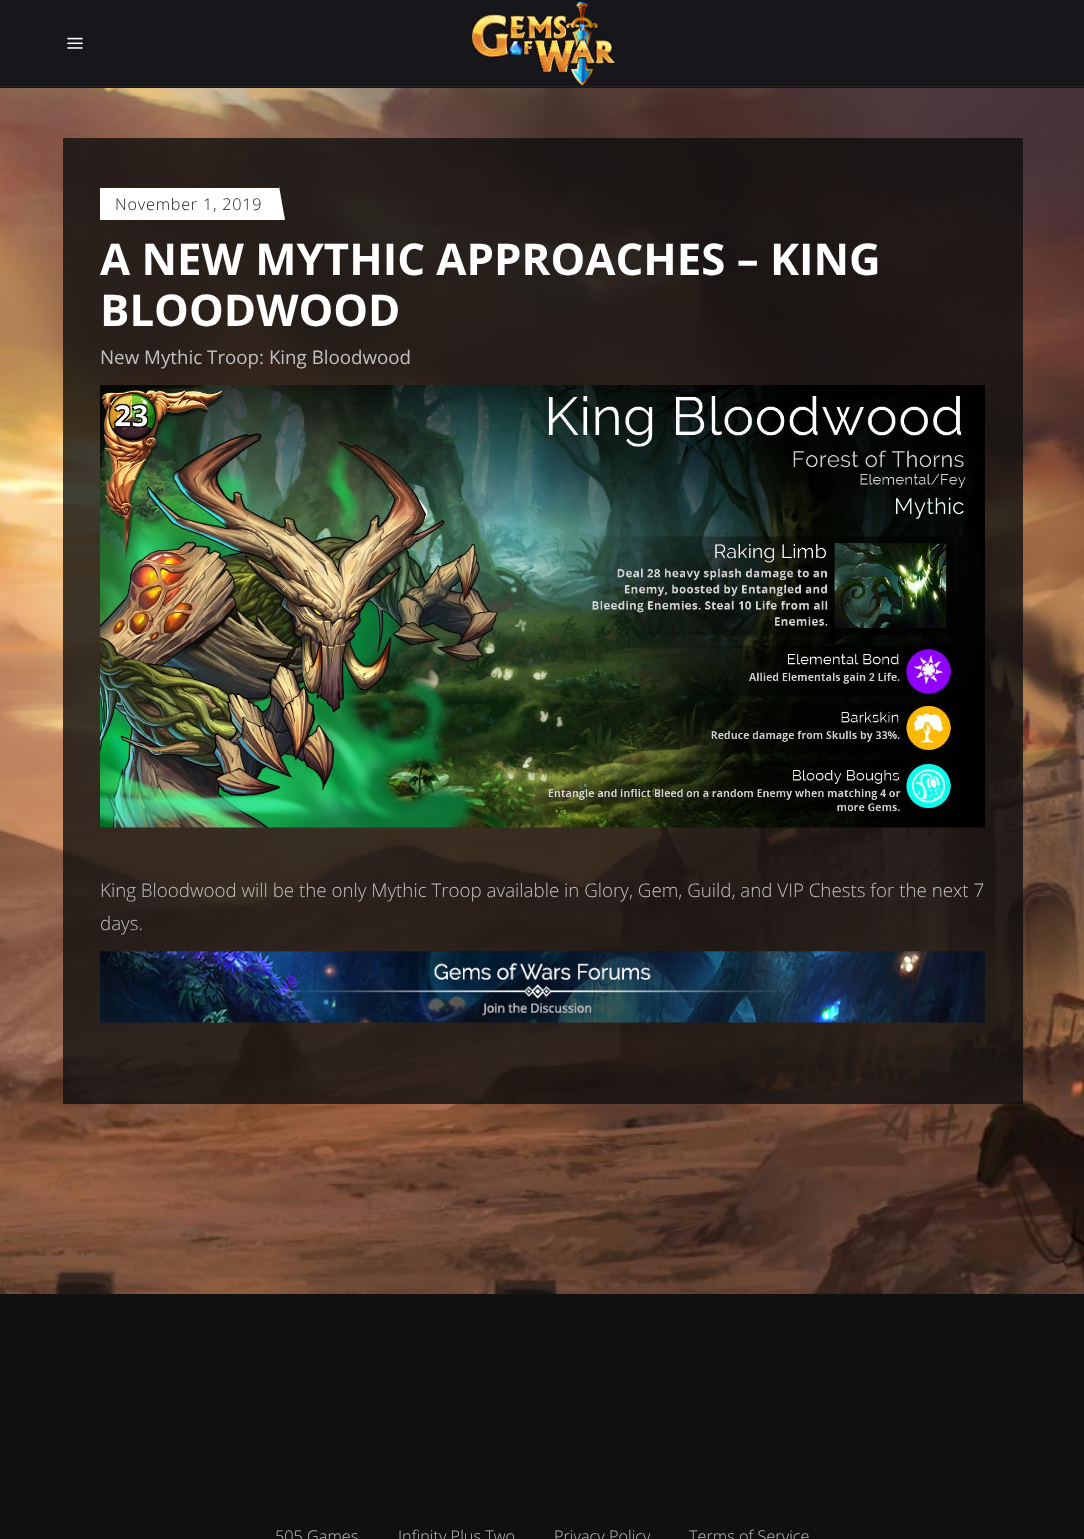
<svg xmlns="http://www.w3.org/2000/svg" xmlns:xlink="http://www.w3.org/1999/xlink" width="1084" height="1539" viewBox="0 0 1084 1539">
<style>
.cls-1{font:300 16.25px Open Sans;letter-spacing:0.75px;fill:#171717}
.cls-2{font:bold 43.75px Open Sans;fill:#ffffff}
.cls-3{font:18.75px Open Sans;fill:#c0c0c0}
.cls-4{font:300 18.75px Open Sans;fill:#c0c0c0}
.cls-5{font:300 16.25px Open Sans;fill:#c0c0c0}
</style>
<rect width="100%" height="100%" fill="#ffffff"/>
<rect fill="#17161a" x="0" y="0" width="1084" height="88"/>
<rect fill="#232225" x="0" y="86" width="1084" height="1"/>
<image xlink:href="image0.png" x="67" y="37" width="16" height="12"/>
<image xlink:href="image1.png" x="470" y="1" width="146" height="86"/>
<image xlink:href="image2.png" x="0" y="88" width="1084" height="1206"/>
<rect fill="#0f0f0f" fill-opacity="0.8" x="63" y="138" width="960" height="966"/>
<rect fill="#ffffff" x="100" y="188" width="179" height="32"/>
<path fill="#ffffff" d="M285 220H279V186Z"/>
<image xlink:href="image3.png" x="100" y="385" width="885" height="443"/>
<image xlink:href="image4.png" x="100" y="951" width="885" height="72"/>
<rect fill="#111011" x="0" y="1294" width="1084" height="245"/>
<text class="cls-1" x="115" y="210">November 1, 2019</text>
<text class="cls-2"><tspan x="100" y="275">A NEW MYTHIC APPROACHES – KING</tspan><tspan x="100" y="326">BLOODWOOD</tspan></text>
<text class="cls-3" x="100" y="364">New Mythic Troop: King Bloodwood</text>
<text class="cls-4"><tspan x="100" y="897">King Bloodwood will be the only Mythic Troop available in Glory, Gem, Guild, and VIP Chests for the next 7</tspan><tspan x="100" y="930">days.</tspan></text>
<text class="cls-5" x="275" y="1542">505 Games</text>
<text class="cls-5" x="398" y="1542">Infinity Plus Two</text>
<text class="cls-5" x="554" y="1542">Privacy Policy</text>
<text class="cls-5" x="689" y="1542">Terms of Service</text>
</svg>
